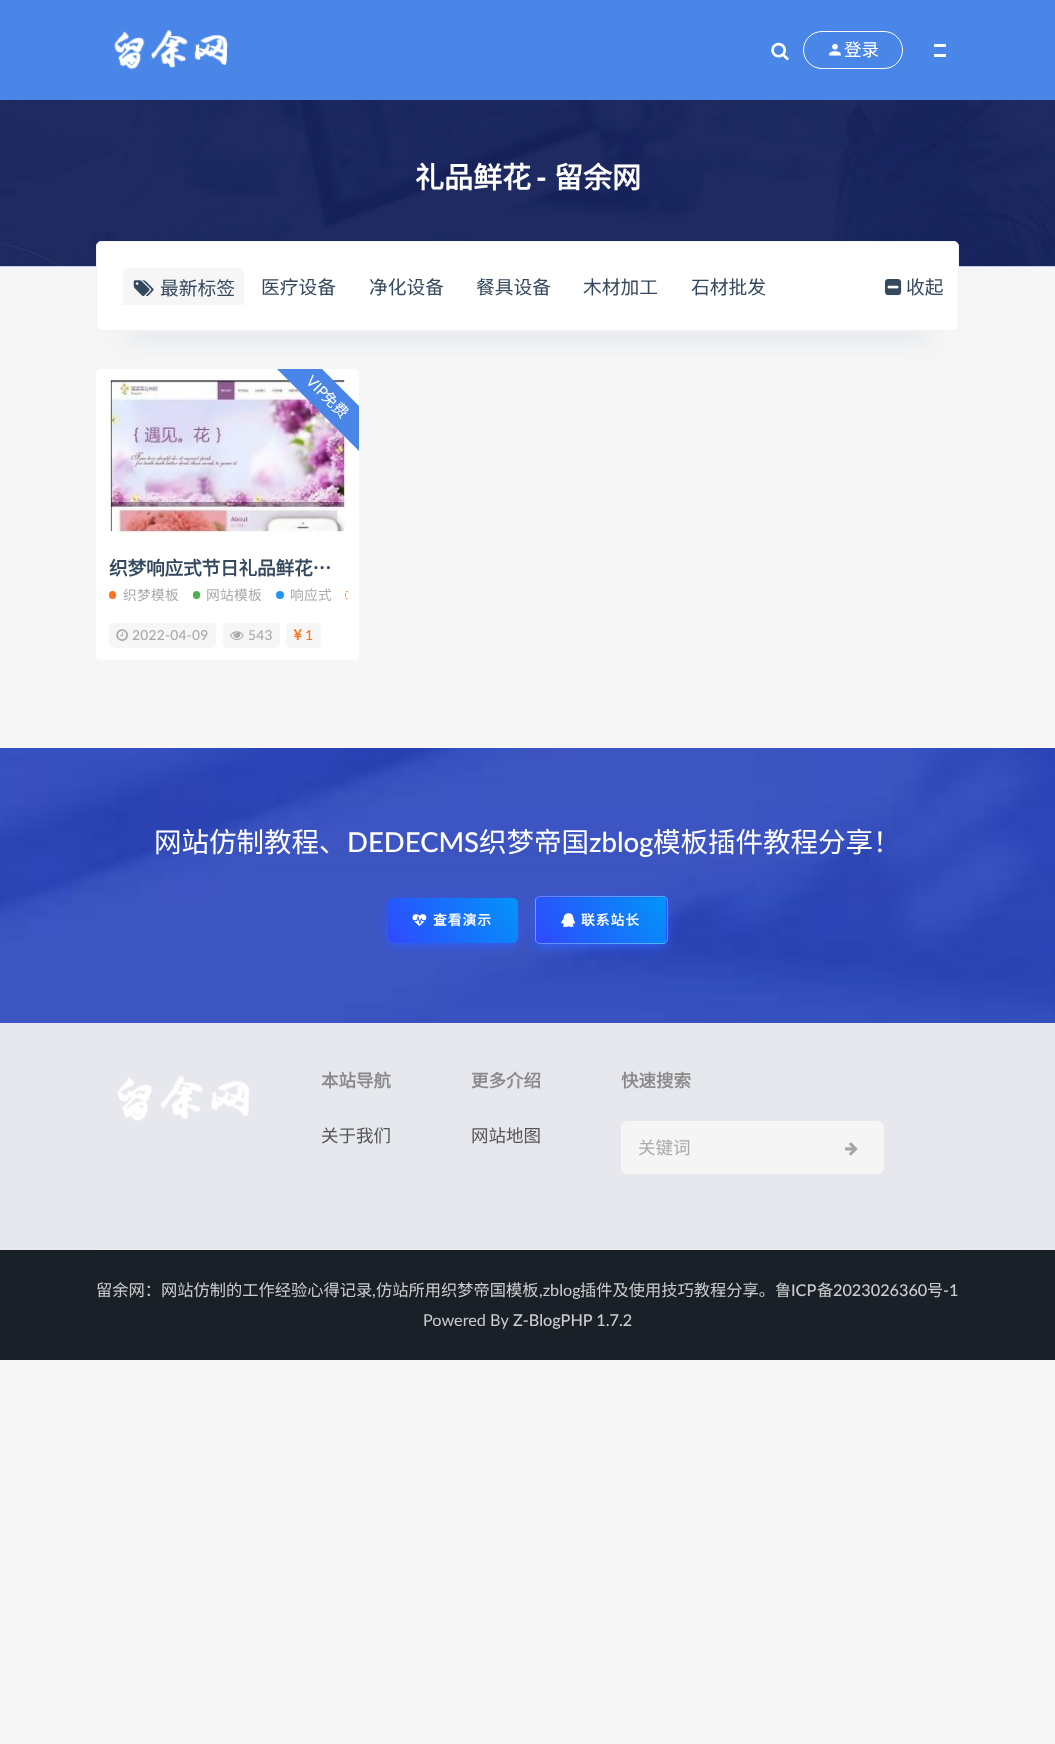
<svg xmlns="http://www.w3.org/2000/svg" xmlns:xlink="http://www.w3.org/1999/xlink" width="1055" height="1744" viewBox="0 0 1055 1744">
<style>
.cls-1{font:17.5px Noto Sans CJK SC;fill:#ffffff}
.cls-2{font:bold 29px Noto Sans CJK SC;fill:#ffffff}
.cls-3{font:900 29px Lato;fill:#ffffff}
.cls-4{font:18.75px Noto Sans CJK SC;fill:#34495e}
.cls-5{font:15px Lato;fill:#ffffff}
.cls-6{font:15px Noto Sans CJK SC;fill:#ffffff}
.cls-7{font:bold 18.75px Noto Sans CJK SC;letter-spacing:-0.25px;fill:#34495e}
.cls-8{font:13.75px Noto Sans CJK SC;letter-spacing:0.25px;fill:#aaaaaa}
.cls-9{font:500 13.75px Lato;letter-spacing:0.25px;fill:#aaaaaa}
.cls-10{font:500 13.75px Lato;letter-spacing:0.25px;fill:#fd721f}
.cls-11{font:27.5px Noto Sans CJK SC;fill:#ffffff}
.cls-12{font:500 27.5px Lato;fill:#ffffff}
.cls-13{font:bold 13.75px Noto Sans CJK SC;letter-spacing:1px;fill:#ffffff}
.cls-14{font:bold 17.5px Noto Sans CJK SC;fill:#8a8a8a}
.cls-15{font:17.5px Noto Sans CJK SC;fill:#555555}
.cls-16{font:17.5px Noto Sans CJK SC;fill:#aaaaaa}
.cls-17{font:16.25px Noto Sans CJK SC;fill:#cccccc}
.cls-18{font:16.25px Lato;fill:#cccccc}
.cls-19{font:500 16.25px Lato;fill:#cccccc}
</style>
<defs>
<clipPath id="clip1"><rect x="123" y="268" width="810" height="37"/></clipPath>
<linearGradient id="g1" gradientUnits="userSpaceOnUse" x1="507" y1="882" x2="398" y2="958"><stop offset="0" stop-color="#0295f9"/><stop offset="1" stop-color="#2f49fd"/></linearGradient>
<clipPath id="clip2"><rect x="535" y="896" width="133" height="48" rx="5"/></clipPath>
<linearGradient id="g2" gradientUnits="userSpaceOnUse" x1="655" y1="837" x2="547" y2="913"><stop offset="0" stop-color="#0295f9"/><stop offset="1" stop-color="#2f49fd"/></linearGradient>
<linearGradient id="g3" gradientUnits="userSpaceOnUse" x1="785" y1="837" x2="677" y2="913"><stop offset="0" stop-color="#0295f9"/><stop offset="1" stop-color="#2f49fd"/></linearGradient>
<linearGradient id="g4" gradientUnits="userSpaceOnUse" x1="525" y1="882" x2="417" y2="958"><stop offset="0" stop-color="#0295f9"/><stop offset="1" stop-color="#2f49fd"/></linearGradient>
<linearGradient id="g5" gradientUnits="userSpaceOnUse" x1="655" y1="882" x2="547" y2="958"><stop offset="0" stop-color="#0295f9"/><stop offset="1" stop-color="#2f49fd"/></linearGradient>
<linearGradient id="g6" gradientUnits="userSpaceOnUse" x1="785" y1="882" x2="677" y2="958"><stop offset="0" stop-color="#0295f9"/><stop offset="1" stop-color="#2f49fd"/></linearGradient>
<linearGradient id="g7" gradientUnits="userSpaceOnUse" x1="655" y1="927" x2="547" y2="1003"><stop offset="0" stop-color="#0295f9"/><stop offset="1" stop-color="#2f49fd"/></linearGradient>
</defs>
<rect width="100%" height="100%" fill="#f6f6f6"/>
<rect fill="#4a86e8" x="0" y="0" width="1055" height="100"/>
<image xlink:href="image0.png" x="114" y="29" width="115" height="41"/>
<image xlink:href="image1.png" x="771" y="42" width="18" height="19"/>
<rect fill="none" stroke="#ffffff" x="803.5" y="31.5" width="99" height="37" rx="18.5"/>
<image xlink:href="image2.png" x="829" y="43" width="12" height="13"/>
<rect fill="#ffffff" x="934" y="44" width="12" height="3"/>
<rect fill="#ffffff" x="934" y="54" width="12" height="3"/>
<image xlink:href="image3.png" x="0" y="100" width="1055" height="167"/>
<rect fill="#ffffff" x="96" y="369" width="263" height="291" rx="5"/>
<image xlink:href="image6.png" x="105" y="378" width="241" height="159"/>
<path fill="#4a86e8" d="M359 451L277 369H322L359 406Z"/>
<rect fill="#002464" fill-opacity="0.06" filter="blur(12.5px)" x="126" y="314" width="803" height="30"/>
<rect fill="#ffffff" stroke="#f3f3f3" x="96.5" y="241.5" width="862" height="89" rx="4.5"/>
<g clip-path="url(#clip1)">
<rect fill="#f6f6f6" x="123" y="268" width="121" height="40" rx="5"/>
</g>
<image xlink:href="image4.png" x="133" y="280" width="21" height="17"/>
<image xlink:href="image5.png" x="885" y="279" width="17" height="17"/>
<rect fill="#fd721f" x="109" y="591" width="7" height="8" rx="3.5"/>
<rect fill="#4caf50" x="193" y="591" width="7" height="8" rx="3.5"/>
<circle fill="#2196f3" cx="280" cy="595" r="4"/>
<path fill="#fd721f" d="M349 591H346V599H349C347 599 345 597 345 595C345 593 347 591 349 591Z"/>
<rect fill="#f6f6f6" x="109" y="623" width="107" height="25" rx="5"/>
<image xlink:href="image7.png" x="116" y="629" width="12" height="12"/>
<rect fill="#f6f6f6" x="223" y="623" width="57" height="25" rx="5"/>
<image xlink:href="image8.png" x="230" y="631" width="14" height="9"/>
<rect fill="#f6f6f6" x="286" y="623" width="35" height="25" rx="5"/>
<image xlink:href="image9.png" x="293" y="629" width="9" height="11"/>
<image xlink:href="image10.png" x="0" y="748" width="1055" height="275"/>
<rect fill="#2c63ff" filter="blur(6px)" x="389" y="903" width="127" height="42" rx="4"/>
<rect fill="url(#g1)" x="388" y="898" width="130" height="45" rx="5"/>
<image xlink:href="image11.png" x="412" y="914" width="15" height="12"/>
<rect fill="#2c63ff" filter="blur(6px)" x="536" y="901" width="130" height="45" rx="4"/>
<g clip-path="url(#clip2)">
<rect fill="url(#g2)" x="536" y="896" width="130" height="2"/>
<rect fill="url(#g3)" x="666" y="897" width="2" height="1"/>
<rect fill="url(#g4)" x="535" y="898" width="1" height="45"/>
</g>
<rect fill="url(#g5)" x="536" y="898" width="130" height="45"/>
<g clip-path="url(#clip2)">
<rect fill="url(#g6)" x="666" y="898" width="2" height="45"/>
<rect fill="url(#g7)" x="536" y="943" width="130" height="1"/>
</g>
<rect fill="none" stroke="#ffffff" stroke-opacity="0.3" x="535.5" y="896.5" width="132" height="47" rx="4.5"/>
<image xlink:href="image12.png" x="561" y="913" width="14" height="14"/>
<rect fill="#e7e8ed" x="0" y="1023" width="1055" height="227"/>
<rect fill="#eeeeee" x="96" y="1249" width="863" height="1"/>
<image xlink:href="image13.png" x="117" y="1075" width="133" height="46"/>
<rect fill="#f5f5f5" stroke="#f6f6f6" x="621.5" y="1121.5" width="262" height="52" rx="5.5"/>
<image xlink:href="image14.png" x="845" y="1142" width="13" height="14"/>
<rect fill="#192027" x="0" y="1250" width="1055" height="110"/>
<text class="cls-1" x="844" y="56">登录</text>
<text class="cls-2" x="415" y="188">礼品鲜花</text>
<text class="cls-3" x="536" y="188">-</text>
<text class="cls-2" x="554" y="188">留余网</text>
<text class="cls-4" x="160" y="295">最新标签</text>
<text class="cls-4" x="261" y="294">医疗设备</text>
<text class="cls-4" x="369" y="294">净化设备</text>
<text class="cls-4" x="476" y="294">餐具设备</text>
<text class="cls-4" x="583" y="294">木材加工</text>
<text class="cls-4" x="691" y="294">石材批发</text>
<text class="cls-4" x="906" y="294">收起</text>
<text class="cls-5" x="305" y="382" transform="rotate(45 305 382)">VIP</text>
<text class="cls-6" x="321" y="398" transform="rotate(45 321 398)">免费</text>
<text class="cls-7" x="109" y="575">织梦响应式节日礼品鲜花…</text>
<text class="cls-8" x="123" y="600">织梦模板</text>
<text class="cls-8" x="206" y="600">网站模板</text>
<text class="cls-8" x="290" y="600">响应式</text>
<text class="cls-9" x="132" y="640">2022-04-09</text>
<text class="cls-9" x="248" y="640">543</text>
<text class="cls-10" x="305" y="640">1</text>
<text class="cls-11" x="154" y="852">网站仿制教程、</text>
<text class="cls-12" x="347" y="852">DEDECMS</text>
<text class="cls-11" x="479" y="852">织梦帝国</text>
<text class="cls-12" x="589" y="852">zblog</text>
<text class="cls-11" x="653" y="852">模板插件教程分享！</text>
<text class="cls-13" x="433" y="925">查看演示</text>
<text class="cls-13" x="581" y="925">联系站长</text>
<text class="cls-14" x="321" y="1087">本站导航</text>
<text class="cls-15" x="321" y="1142">关于我们</text>
<text class="cls-14" x="471" y="1087">更多介绍</text>
<text class="cls-15" x="471" y="1142">网站地图</text>
<text class="cls-14" x="621" y="1087">快速搜索</text>
<text class="cls-16" x="638" y="1154">关键词</text>
<text class="cls-17" x="96" y="1296">留余网：网站仿制的工作经验心得记录 仿站所用织梦帝国模板</text>
<text class="cls-18" x="539" y="1296">,zblog</text>
<text class="cls-17" x="580" y="1296">插件及使用技巧教程分享。鲁</text>
<text class="cls-19" x="791" y="1296">ICP</text>
<text class="cls-17" x="817" y="1296">备</text>
<text class="cls-19" x="833" y="1296">2023026360</text>
<text class="cls-17" x="927" y="1296">号</text>
<text class="cls-19" x="943" y="1296">-1</text>
<text class="cls-18" x="372" y="1296">,</text>
<text class="cls-18" x="423" y="1326">Powered By</text>
<text class="cls-19" x="513" y="1326">Z-BlogPHP 1.7.2</text>
</svg>
